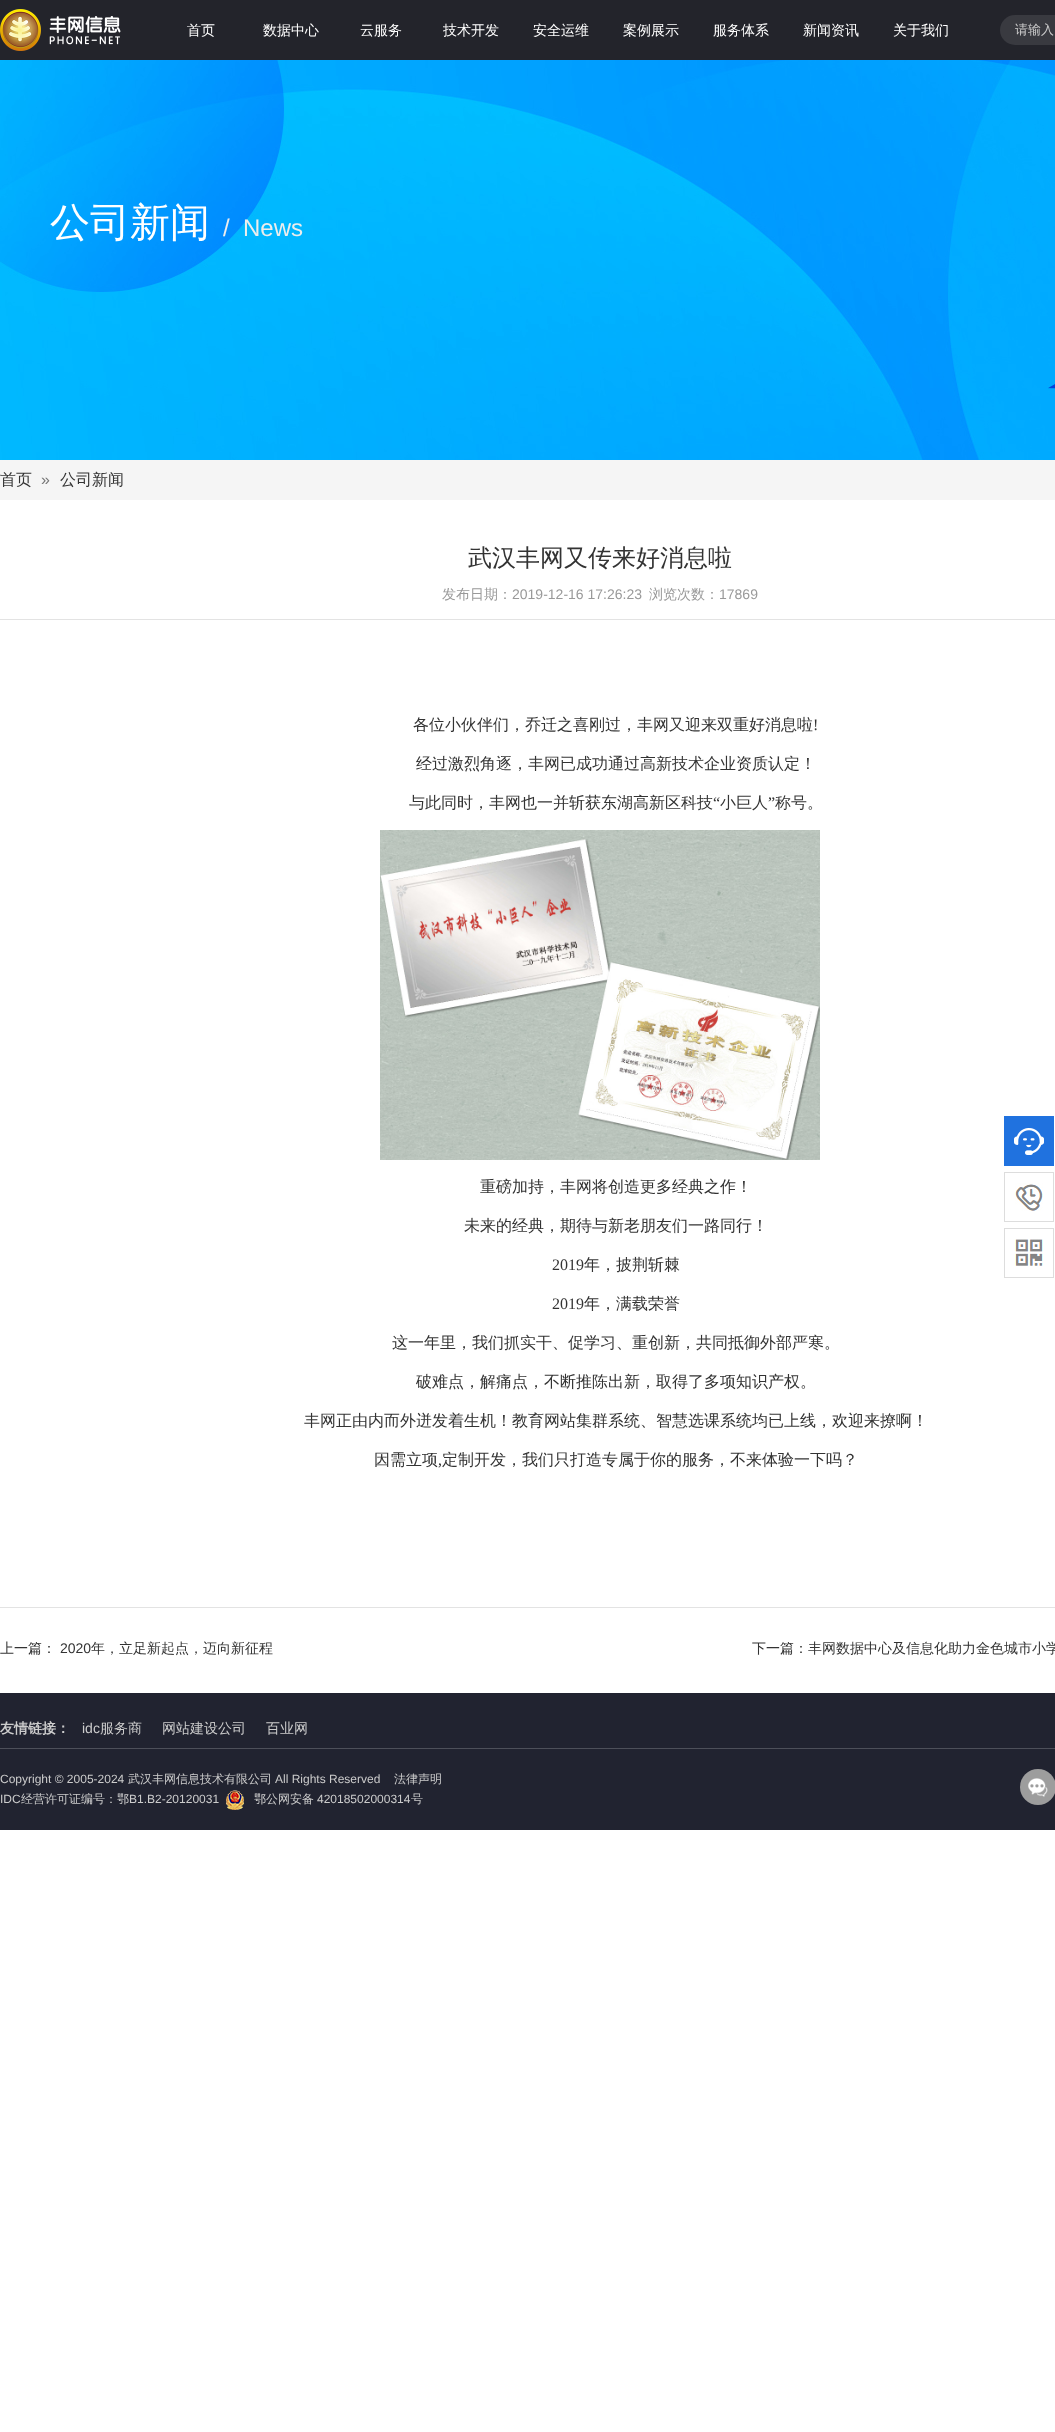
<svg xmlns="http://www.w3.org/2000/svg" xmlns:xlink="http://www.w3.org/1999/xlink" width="1055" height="2432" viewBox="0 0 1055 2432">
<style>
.cls-1{font:500 14px WenQuanYi Zen Hei;fill:#ffffff}
.cls-2{font:500 13px WenQuanYi Zen Hei;fill:#cccccc}
.cls-3{font:500 40px WenQuanYi Zen Hei;fill:#ffffff}
.cls-4{font:24px Liberation Sans;fill:#ededed}
.cls-5{font:500 16px WenQuanYi Zen Hei;fill:#333333}
.cls-6{font:16px Liberation Sans;fill:#777777}
.cls-7{font:500 24px WenQuanYi Zen Hei;fill:#333333}
.cls-8{font:500 14px WenQuanYi Zen Hei;fill:#999999}
.cls-9{font:14px Liberation Sans;fill:#999999}
.cls-10{font:16px Liberation Serif;fill:#333333}
.cls-11{font:500 14px WenQuanYi Zen Hei;fill:#333333}
.cls-12{font:14px Liberation Sans;fill:#333333}
.cls-13{font:bold 14px WenQuanYi Zen Hei;fill:#cccccc}
.cls-14{font:14px Liberation Sans;fill:#cccccc}
.cls-15{font:500 14px WenQuanYi Zen Hei;fill:#cccccc}
.cls-16{font:12px Liberation Sans;fill:#cccccc}
.cls-17{font:500 12px WenQuanYi Zen Hei;fill:#cccccc}
</style>
<rect width="100%" height="100%" fill="#ffffff"/>
<rect fill="#23242b" x="0" y="0" width="1055" height="60"/>
<image xlink:href="image0.png" x="0" y="9" width="121" height="42"/>
<rect fill="#393a40" x="1000" y="15" width="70" height="30" rx="15"/>
<image xlink:href="image1.png" x="0" y="60" width="1055" height="400"/>
<rect fill="#f5f5f5" x="0" y="460" width="1055" height="40"/>
<rect fill="#e3e3e3" x="0" y="619" width="1055" height="1"/>
<image xlink:href="image2.png" x="380" y="830" width="440" height="330"/>
<rect fill="#2072df" x="1004" y="1116" width="50" height="50"/>
<image xlink:href="image3.png" x="1014" y="1128" width="30" height="27"/>
<rect fill="none" stroke="#dddddd" x="1004.5" y="1172.5" width="49" height="49"/>
<image xlink:href="image4.png" x="1015" y="1183" width="28" height="28"/>
<rect fill="none" stroke="#dddddd" x="1004.5" y="1228.5" width="49" height="49"/>
<image xlink:href="image5.png" x="1015" y="1239" width="28" height="27"/>
<rect fill="#e3e3e3" x="0" y="1607" width="1055" height="1"/>
<rect fill="#212330" x="0" y="1693" width="1055" height="137"/>
<rect fill="#4d4f59" x="0" y="1748" width="1055" height="1"/>
<image xlink:href="image6.png" x="226" y="1790" width="18" height="20"/>
<circle fill="#9d9d9d" cx="1038" cy="1787" r="18"/>
<image xlink:href="image7.png" x="1028" y="1778" width="20" height="19"/>
<text class="cls-1" x="187" y="35">首页</text>
<text class="cls-1" x="263" y="35">数据中心</text>
<text class="cls-1" x="360" y="35">云服务</text>
<text class="cls-1" x="443" y="35">技术开发</text>
<text class="cls-1" x="533" y="35">安全运维</text>
<text class="cls-1" x="623" y="35">案例展示</text>
<text class="cls-1" x="713" y="35">服务体系</text>
<text class="cls-1" x="803" y="35">新闻资讯</text>
<text class="cls-1" x="893" y="35">关于我们</text>
<text class="cls-2" x="1015" y="34">请输入</text>
<text class="cls-3" x="50" y="236">公司新闻</text>
<text class="cls-4" xml:space="preserve" x="223" y="236">/  News</text>
<text class="cls-5" x="0" y="485">首页</text>
<text class="cls-6" x="41" y="485">»</text>
<text class="cls-5" x="60" y="485">公司新闻</text>
<text class="cls-7" x="468" y="566">武汉丰网又传来好消息啦</text>
<text class="cls-8" x="442" y="599">发布日期：</text>
<text class="cls-9" x="512" y="599">2019-12-16 17:26:23</text>
<text class="cls-8" x="649" y="599">浏览次数：</text>
<text class="cls-9" x="719" y="599">17869</text>
<text class="cls-5" x="413" y="730">各位小伙伴们，乔迁之喜刚过，丰网又迎来双重好消息啦</text>
<text class="cls-10" x="813" y="730">!</text>
<text class="cls-5" x="416" y="769">经过激烈角逐，丰网已成功通过高新技术企业资质认定！</text>
<text class="cls-5" x="409" y="808">与此同时，丰网也一并斩获东湖高新区科技</text>
<text class="cls-10" x="713" y="808">“</text>
<text class="cls-5" x="720" y="808">小巨人</text>
<text class="cls-10" x="768" y="808">”</text>
<text class="cls-5" x="775" y="808">称号。</text>
<text class="cls-5" x="480" y="1192">重磅加持，丰网将创造更多经典之作！</text>
<text class="cls-5" x="464" y="1231">未来的经典，期待与新老朋友们一路同行！</text>
<text class="cls-10" x="552" y="1270">2019</text>
<text class="cls-5" x="584" y="1270">年，披荆斩棘</text>
<text class="cls-10" x="552" y="1309">2019</text>
<text class="cls-5" x="584" y="1309">年，满载荣誉</text>
<text class="cls-5" x="392" y="1348">这一年里，我们抓实干、促学习、重创新，共同抵御外部严寒。</text>
<text class="cls-5" x="416" y="1387">破难点，解痛点，不断推陈出新，取得了多项知识产权。</text>
<text class="cls-5" x="304" y="1426">丰网正由内而外迸发着生机！教育网站集群系统、智慧选课系统均已上线，欢迎来撩啊！</text>
<text class="cls-5" x="374" y="1465">因需立项</text>
<text class="cls-10" x="438" y="1465">,</text>
<text class="cls-5" x="442" y="1465">定制开发，我们只打造专属于你的服务，不来体验一下吗？</text>
<text class="cls-11" x="0" y="1653">上一篇：</text>
<text class="cls-12" x="60" y="1653">2020</text>
<text class="cls-11" x="91" y="1653">年，立足新起点，迈向新征程</text>
<text class="cls-11" x="752" y="1653">下一篇：丰网数据中心及信息化助力金色城市小学</text>
<text class="cls-13" x="0" y="1733">友情链接：</text>
<text class="cls-14" x="82" y="1733">idc</text>
<text class="cls-15" x="100" y="1733">服务商</text>
<text class="cls-15" x="162" y="1733">网站建设公司</text>
<text class="cls-15" x="266" y="1733">百业网</text>
<text class="cls-16" x="0" y="1783">Copyright © 2005-2024</text>
<text class="cls-17" x="128" y="1783">武汉丰网信息技术有限公司</text>
<text class="cls-16" x="275" y="1783">All Rights Reserved</text>
<text class="cls-17" x="394" y="1783">法律声明</text>
<text class="cls-16" x="0" y="1803">IDC</text>
<text class="cls-17" x="21" y="1803">经营许可证编号：鄂</text>
<text class="cls-16" x="129" y="1803">B1.B2-20120031</text>
<text class="cls-17" x="254" y="1803">鄂公网安备</text>
<text class="cls-16" x="317" y="1803">42018502000314</text>
<text class="cls-17" x="411" y="1803">号</text>
</svg>
